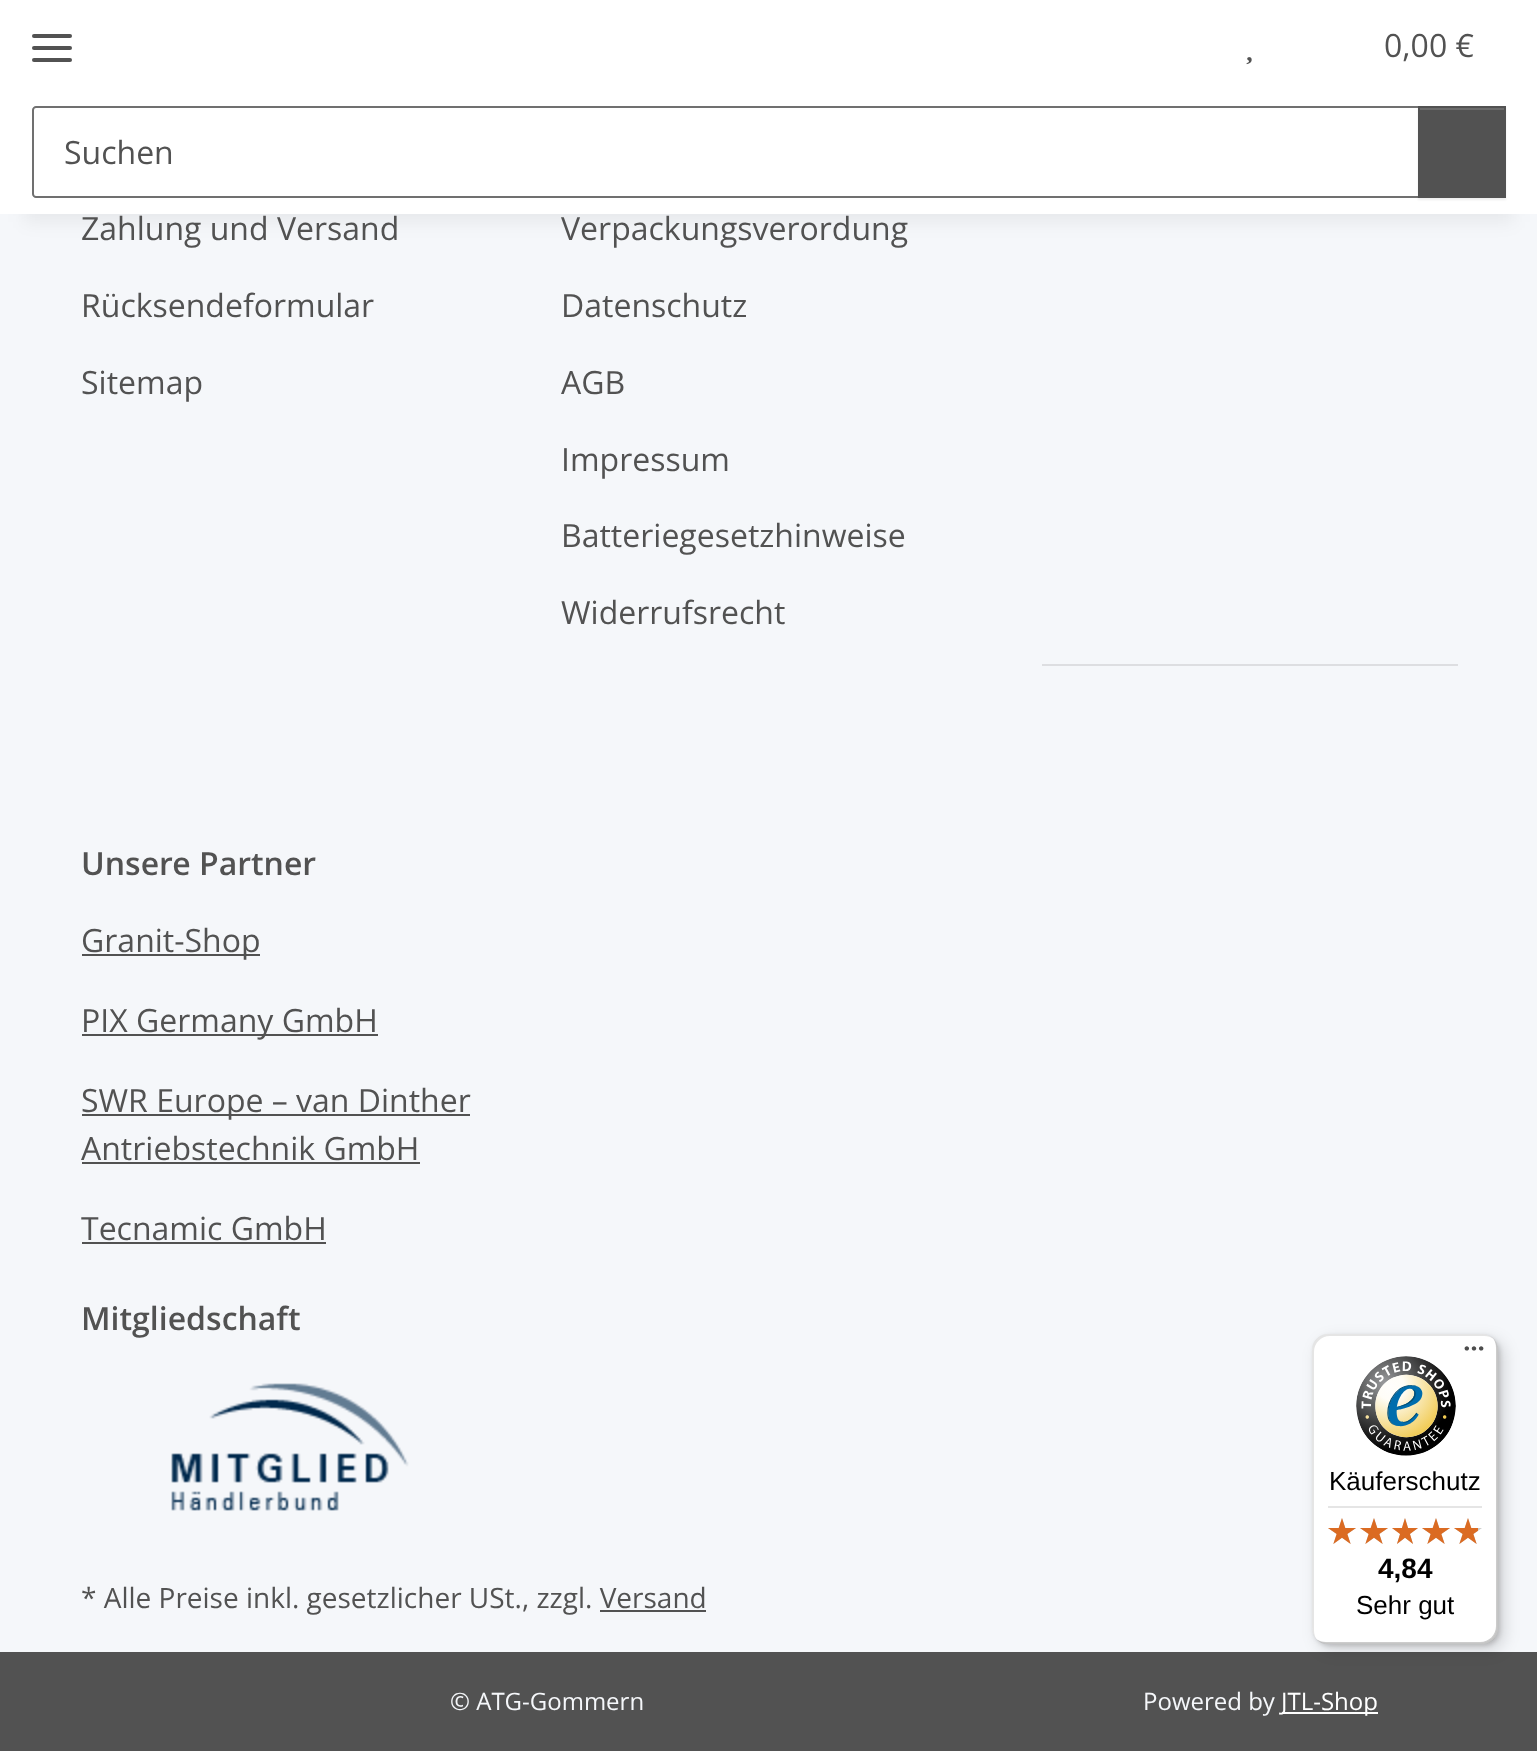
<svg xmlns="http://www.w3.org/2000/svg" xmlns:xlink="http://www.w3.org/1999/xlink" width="1537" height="1751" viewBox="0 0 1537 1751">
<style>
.cls-1{font:32px Open Sans;fill:#525252}
.cls-2{font:600 32px Open Sans;fill:#525252}
.cls-3{font:28px Open Sans;fill:#525252}
.cls-4{font:24px Open Sans;fill:#f5f7fa}
.cls-5{font:24px Open Sans;fill:#ffffff}
.cls-6{font:26px Liberation Sans;fill:#000000}
.cls-7{font:bold 28px Liberation Sans;fill:#000000}
</style>
<rect width="100%" height="100%" fill="#f5f7fa"/>
<rect fill="#000000" fill-opacity="0.06" filter="blur(9px)" x="24" y="56" width="1490" height="166"/>
<rect fill="#ffffff" x="0" y="0" width="1537" height="214"/>
<rect fill="#525252" x="32" y="46" width="40" height="4" rx="2"/>
<rect fill="#525252" x="32" y="34" width="40" height="4" rx="2"/>
<rect fill="#525252" x="32" y="58" width="40" height="4" rx="2"/>
<image xlink:href="image0.png" x="1246" y="57" width="6" height="8"/>
<path fill="none" stroke="#707070" stroke-width="2" d="M36 107H1419V197H36C34.5 197 33 195.5 33 194V110C33 108.5 34.5 107 36 107Z"/>
<rect fill="#000000" fill-opacity="0.07" filter="blur(1px)" x="1418" y="108" width="88" height="92"/>
<rect fill="#525252" x="1418" y="106" width="88" height="92"/>
<rect fill="#6c6c6c" x="1420" y="108" width="84" height="2"/>
<rect fill="#dddee1" x="1042" y="664" width="416" height="2"/>
<rect fill="#525252" x="82" y="954" width="178" height="2"/>
<rect fill="#525252" x="82" y="1034" width="296" height="2"/>
<rect fill="#525252" x="82" y="1114" width="388" height="2"/>
<rect fill="#525252" x="82" y="1162" width="338" height="2"/>
<rect fill="#525252" x="82" y="1242" width="244" height="2"/>
<image xlink:href="image1.png" x="171" y="1383" width="238" height="128"/>
<rect fill="#525252" x="600" y="1610" width="106" height="2"/>
<rect fill="#525252" x="0" y="1652" width="1537" height="99"/>
<rect fill="#ffffff" x="1282" y="1712" width="96" height="2"/>
<rect fill="#000000" fill-opacity="0.15" filter="blur(8px)" x="1318" y="1340" width="186" height="310" rx="16"/>
<rect fill="#000000" fill-opacity="0.15" filter="blur(2px)" x="1314" y="1336" width="186" height="310" rx="16"/>
<rect fill="#ffffff" x="1312" y="1334" width="186" height="310" rx="16"/>
<path fill="#000000" fill-opacity="0.1" d="M1330 1336H1484C1488 1336 1491 1337 1494 1339C1491 1336 1487 1334 1482 1334H1328C1319 1334 1312 1341 1312 1350V1628C1312 1633 1314 1637 1317 1640C1315 1637 1314 1634 1314 1630V1352C1314 1343 1321 1336 1330 1336Z"/>
<path fill="#000000" fill-opacity="0.2" d="M1316 1639C1319 1642 1323 1644 1328 1644H1482C1491 1644 1498 1637 1498 1628V1350C1498 1345 1496 1341 1493 1338C1495 1341 1496 1344 1496 1348V1626C1496 1635 1489 1642 1480 1642H1326C1322 1642 1319 1641 1316 1639Z"/>
<path fill="#323232" fill-opacity="0.2" d="M1317 1639C1320 1642 1324 1644 1328 1644H1482C1491 1644 1498 1637 1498 1628V1350C1498 1346 1496 1342 1493 1339C1496 1342 1497 1345 1497 1349V1627C1497 1636 1490 1643 1481 1643H1327C1323 1643 1320 1642 1317 1639Z"/>
<path fill="#ffffff" fill-opacity="0.3" d="M1317 1639C1320 1642 1324 1644 1328 1644H1482C1491 1644 1498 1637 1498 1628V1350C1498 1346 1496 1342 1493 1339C1496 1342 1497 1345 1497 1349V1627C1497 1636 1490 1643 1481 1643H1327C1323 1643 1320 1642 1317 1639Z"/>
<image xlink:href="image2.png" x="1464" y="1346" width="20" height="5"/>
<image xlink:href="image3.png" x="1356" y="1356" width="100" height="100"/>
<rect fill="#e5e5e5" x="1328" y="1506" width="154" height="2"/>
<image xlink:href="image4.png" x="1328" y="1518" width="28" height="26"/>
<image xlink:href="image4.png" x="1360" y="1518" width="28" height="26"/>
<image xlink:href="image5.png" x="1392" y="1518" width="26" height="26"/>
<image xlink:href="image4.png" x="1422" y="1518" width="28" height="26"/>
<image xlink:href="image4.png" x="1454" y="1518" width="28" height="26"/>
<image xlink:href="image6.png" x="1328" y="1518" width="28" height="26"/>
<image xlink:href="image6.png" x="1360" y="1518" width="28" height="26"/>
<image xlink:href="image7.png" x="1392" y="1518" width="26" height="26"/>
<image xlink:href="image6.png" x="1422" y="1518" width="28" height="26"/>
<image xlink:href="image8.png" x="1454" y="1518" width="24" height="26"/>
<text class="cls-1" x="1384" y="57">0,00 €</text>
<text class="cls-1" x="64" y="164">Suchen</text>
<text class="cls-1" x="81" y="240">Zahlung und Versand</text>
<text class="cls-1" x="81" y="317">Rücksendeformular</text>
<text class="cls-1" x="81" y="394">Sitemap</text>
<text class="cls-1" x="561" y="240">Verpackungsverordung</text>
<text class="cls-1" x="561" y="317">Datenschutz</text>
<text class="cls-1" x="561" y="394">AGB</text>
<text class="cls-1" x="561" y="471">Impressum</text>
<text class="cls-1" x="561" y="547">Batteriegesetzhinweise</text>
<text class="cls-1" x="561" y="624">Widerrufsrecht</text>
<text class="cls-2" x="81" y="875">Unsere Partner</text>
<text class="cls-1" x="81" y="952">Granit-Shop</text>
<text class="cls-1" x="81" y="1032">PIX Germany GmbH</text>
<text class="cls-1"><tspan x="81" y="1112">SWR Europe – van Dinther</tspan><tspan x="81" y="1160">Antriebstechnik GmbH</tspan></text>
<text class="cls-1" x="81" y="1240">Tecnamic GmbH</text>
<text class="cls-2" x="81" y="1330">Mitgliedschaft</text>
<text class="cls-3" x="81" y="1608">* Alle Preise inkl. gesetzlicher USt., zzgl. Versand</text>
<text class="cls-4" x="450" y="1710">© ATG-Gommern</text>
<text class="cls-4" x="1143" y="1710">Powered by</text>
<text class="cls-5" x="1281" y="1710">JTL-Shop</text>
<text class="cls-6" x="1329" y="1490">Käuferschutz</text>
<text class="cls-7" x="1378" y="1578">4,84</text>
<text class="cls-6" x="1356" y="1614">Sehr gut</text>
</svg>
